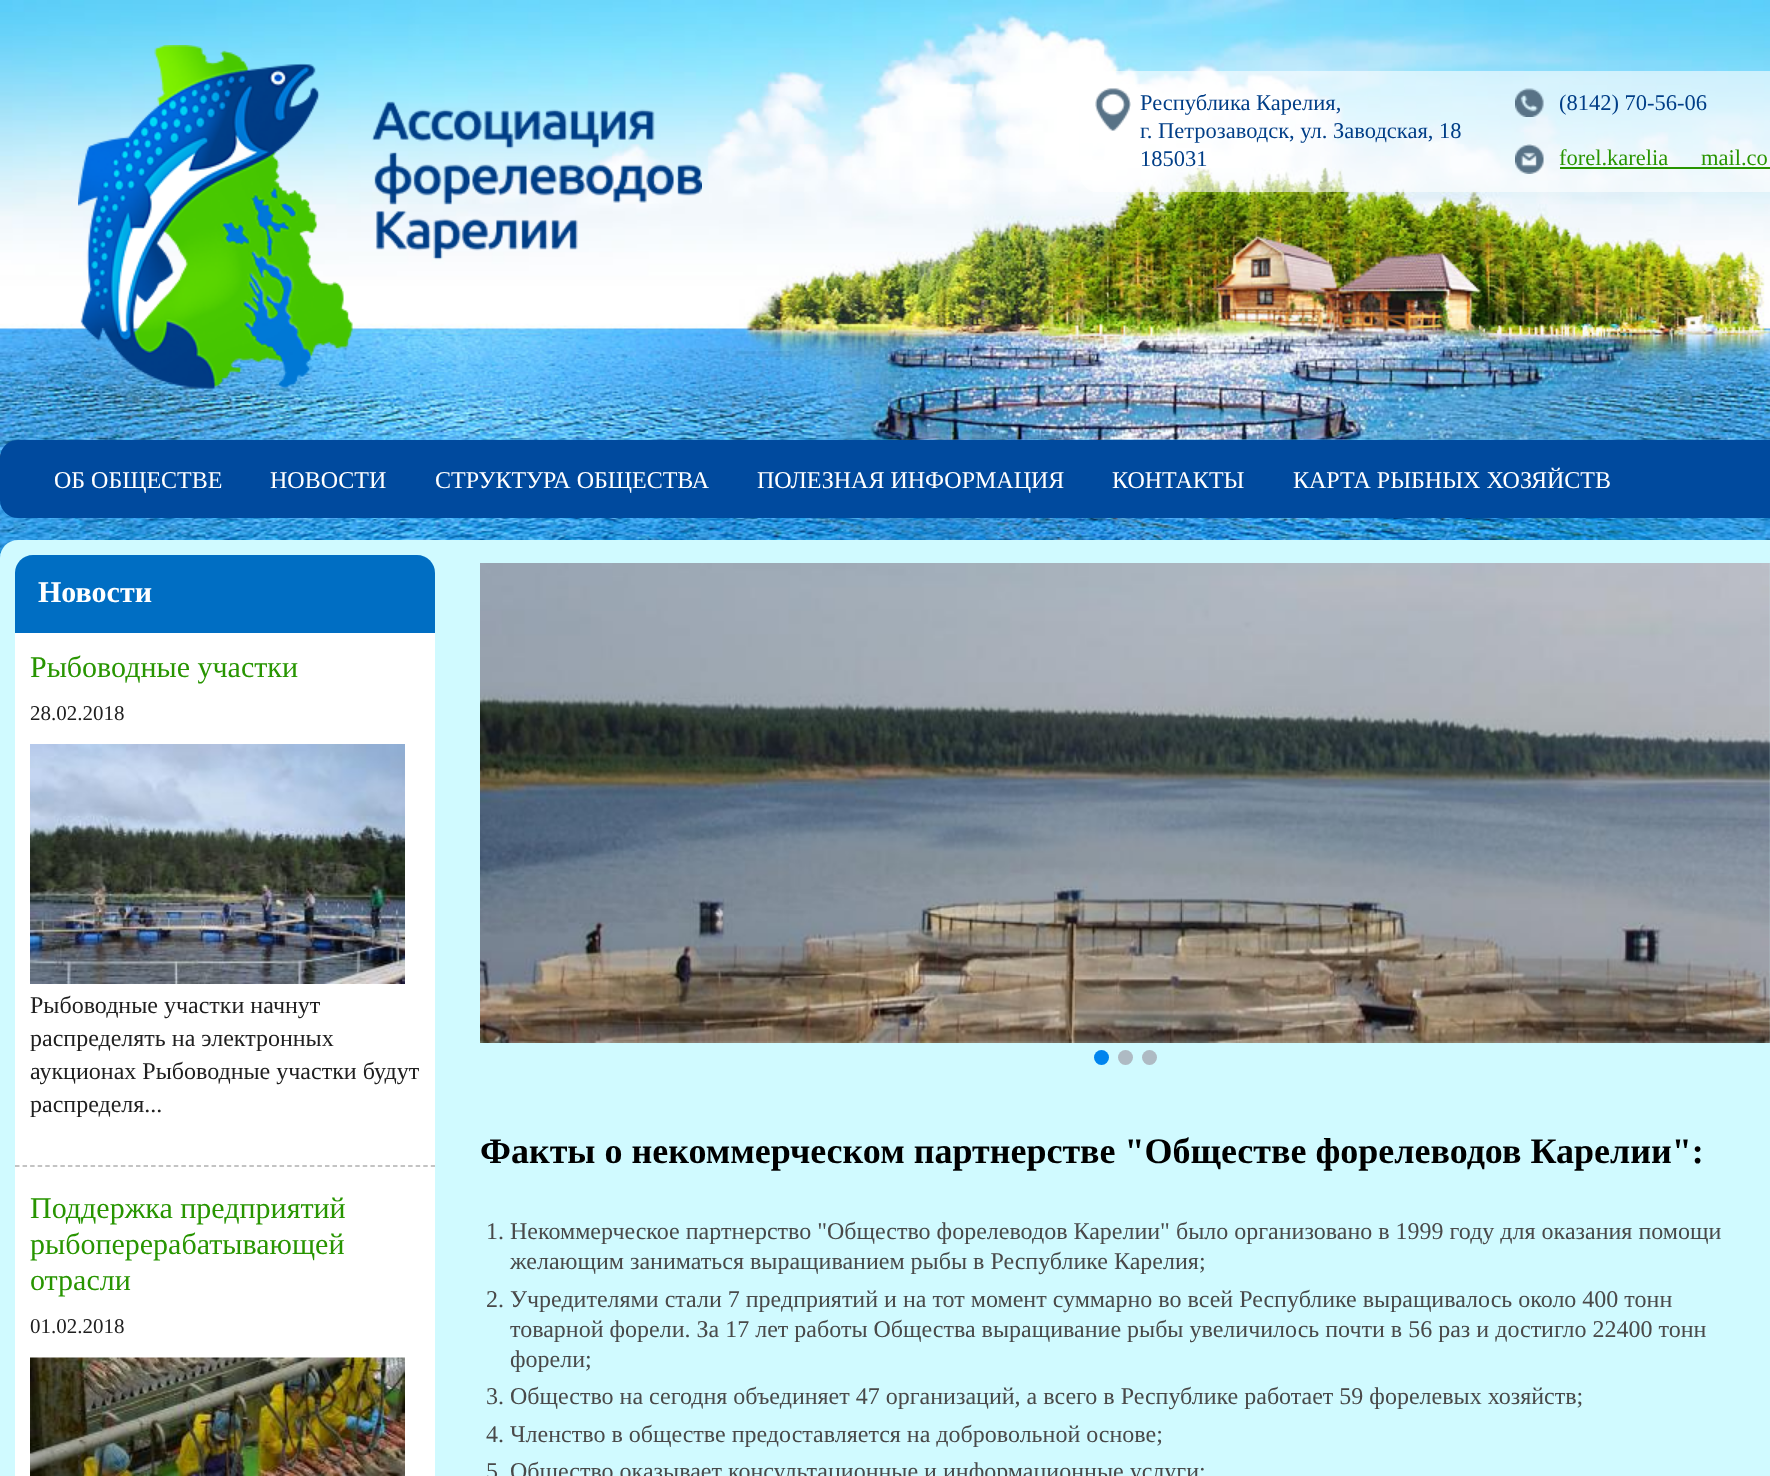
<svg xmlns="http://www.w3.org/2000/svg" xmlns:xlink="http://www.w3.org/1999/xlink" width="1770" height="1476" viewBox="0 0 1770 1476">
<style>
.cls-1{font:22.5px Liberation Serif;fill:#003e87}
.cls-2{font:22.5px Liberation Serif;fill:#289500}
.cls-3{font:24px Liberation Serif;fill:#ffffff}
.cls-4{font:bold 30px Liberation Serif;fill:#ffffff}
.cls-5{font:30px Liberation Serif;fill:#289500}
.cls-6{font:21px Liberation Serif;fill:#202020}
.cls-7{font:24px Liberation Serif;fill:#202020}
.cls-8{font:bold 36px Liberation Serif;fill:#000000}
.cls-9{font:24px Liberation Serif;fill:#494949}
</style>
<rect width="100%" height="100%" fill="#ffffff"/>
<image xlink:href="image0.png" x="0" y="439" width="1770" height="119"/>
<image xlink:href="image1.png" x="0" y="0" width="1770" height="440"/>
<image xlink:href="image2.png" x="78" y="45" width="624" height="344"/>
<rect fill="#ffffff" fill-opacity="0.6" x="1080" y="71" width="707" height="121" rx="17"/>
<image xlink:href="image3.png" x="1095" y="88" width="36" height="43"/>
<image xlink:href="image4.png" x="1515" y="88" width="29" height="29"/>
<image xlink:href="image5.png" x="1515" y="144" width="29" height="30"/>
<rect fill="#279400" x="1560" y="167" width="210" height="2"/>
<rect fill="#004a9e" x="0" y="440" width="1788" height="78" rx="18"/>
<path fill="#d0faff" d="M18 540H1770C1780 540 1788 548 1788 558V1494H0V558C0 548 8 540 18 540Z"/>
<path fill="#006ec3" d="M33 555H417C427 555 435 563 435 573V633H15V573C15 563 23 555 33 555Z"/>
<rect fill="#ffffff" x="15" y="633" width="420" height="843"/>
<image xlink:href="image6.png" x="30" y="744" width="375" height="240"/>
<path fill="none" stroke="#b0b0b0" stroke-width="1.5" stroke-dasharray="4.5 3.06" d="M15 1166H435"/>
<image xlink:href="image7.png" x="30" y="1357" width="375" height="119"/>
<image xlink:href="image8.png" x="480" y="563" width="1290" height="480"/>
<circle fill="#0084ee" cx="1101.5" cy="1057.5" r="7.5"/>
<circle fill="#aebac3" cx="1125.5" cy="1057.5" r="7.5"/>
<circle fill="#aebac3" cx="1149.5" cy="1057.5" r="7.5"/>
<text class="cls-1"><tspan x="1140" y="110">Республика Карелия,</tspan><tspan x="1140" y="138">г. Петрозаводск, ул. Заводская, 18</tspan><tspan x="1140" y="166">185031</tspan></text>
<text class="cls-1" x="1559" y="110">(8142) 70-56-06</text>
<text class="cls-2" x="1559" y="165">forel.karelia</text>
<text class="cls-2" x="1701" y="165">mail.co</text>
<text class="cls-3" x="54" y="488">ОБ ОБЩЕСТВЕ</text>
<text class="cls-3" x="270" y="488">НОВОСТИ</text>
<text class="cls-3" x="435" y="488">СТРУКТУРА ОБЩЕСТВА</text>
<text class="cls-3" x="757" y="488">ПОЛЕЗНАЯ ИНФОРМАЦИЯ</text>
<text class="cls-3" x="1112" y="488">КОНТАКТЫ</text>
<text class="cls-3" x="1293" y="488">КАРТА РЫБНЫХ ХОЗЯЙСТВ</text>
<text class="cls-4" x="38" y="602">Новости</text>
<text class="cls-5" x="30" y="677">Рыбоводные участки</text>
<text class="cls-6" x="30" y="720">28.02.2018</text>
<text class="cls-7"><tspan x="30" y="1013">Рыбоводные участки начнут</tspan><tspan x="30" y="1046">распределять на электронных</tspan><tspan x="30" y="1079">аукционах Рыбоводные участки будут</tspan><tspan x="30" y="1112">распределя...</tspan></text>
<text class="cls-5"><tspan x="30" y="1218">Поддержка предприятий</tspan><tspan x="30" y="1254">рыбоперерабатывающей</tspan><tspan x="30" y="1290">отрасли</tspan></text>
<text class="cls-6" x="30" y="1333">01.02.2018</text>
<text class="cls-8" x="480" y="1163">Факты о некоммерческом партнерстве "Обществе форелеводов Карелии":</text>
<text class="cls-9" x="486" y="1239">1. Некоммерческое партнерство "Общество форелеводов Карелии" было организовано в 1999 году для оказания помощи</text>
<text class="cls-9" x="510" y="1269">желающим заниматься выращиванием рыбы в Республике Карелия;</text>
<text class="cls-9" x="486" y="1307">2. Учредителями стали 7 предприятий и на тот момент суммарно во всей Республике выращивалось около 400 тонн</text>
<text class="cls-9"><tspan x="510" y="1337">товарной форели. За 17 лет работы Общества выращивание рыбы увеличилось почти в 56 раз и достигло 22400 тонн</tspan><tspan x="510" y="1367">форели;</tspan></text>
<text class="cls-9"><tspan x="486" y="1404">3. Общество на сегодня объединяет 47 организаций, а всего в Республике работает 59 форелевых хозяйств;</tspan><tspan x="486" y="1442">4. Членство в обществе предоставляется на добровольной основе;</tspan><tspan x="486" y="1479">5</tspan></text>
<text class="cls-9" x="510" y="1479">Общество оказывает консультационные и информационные услуги;</text>
</svg>
